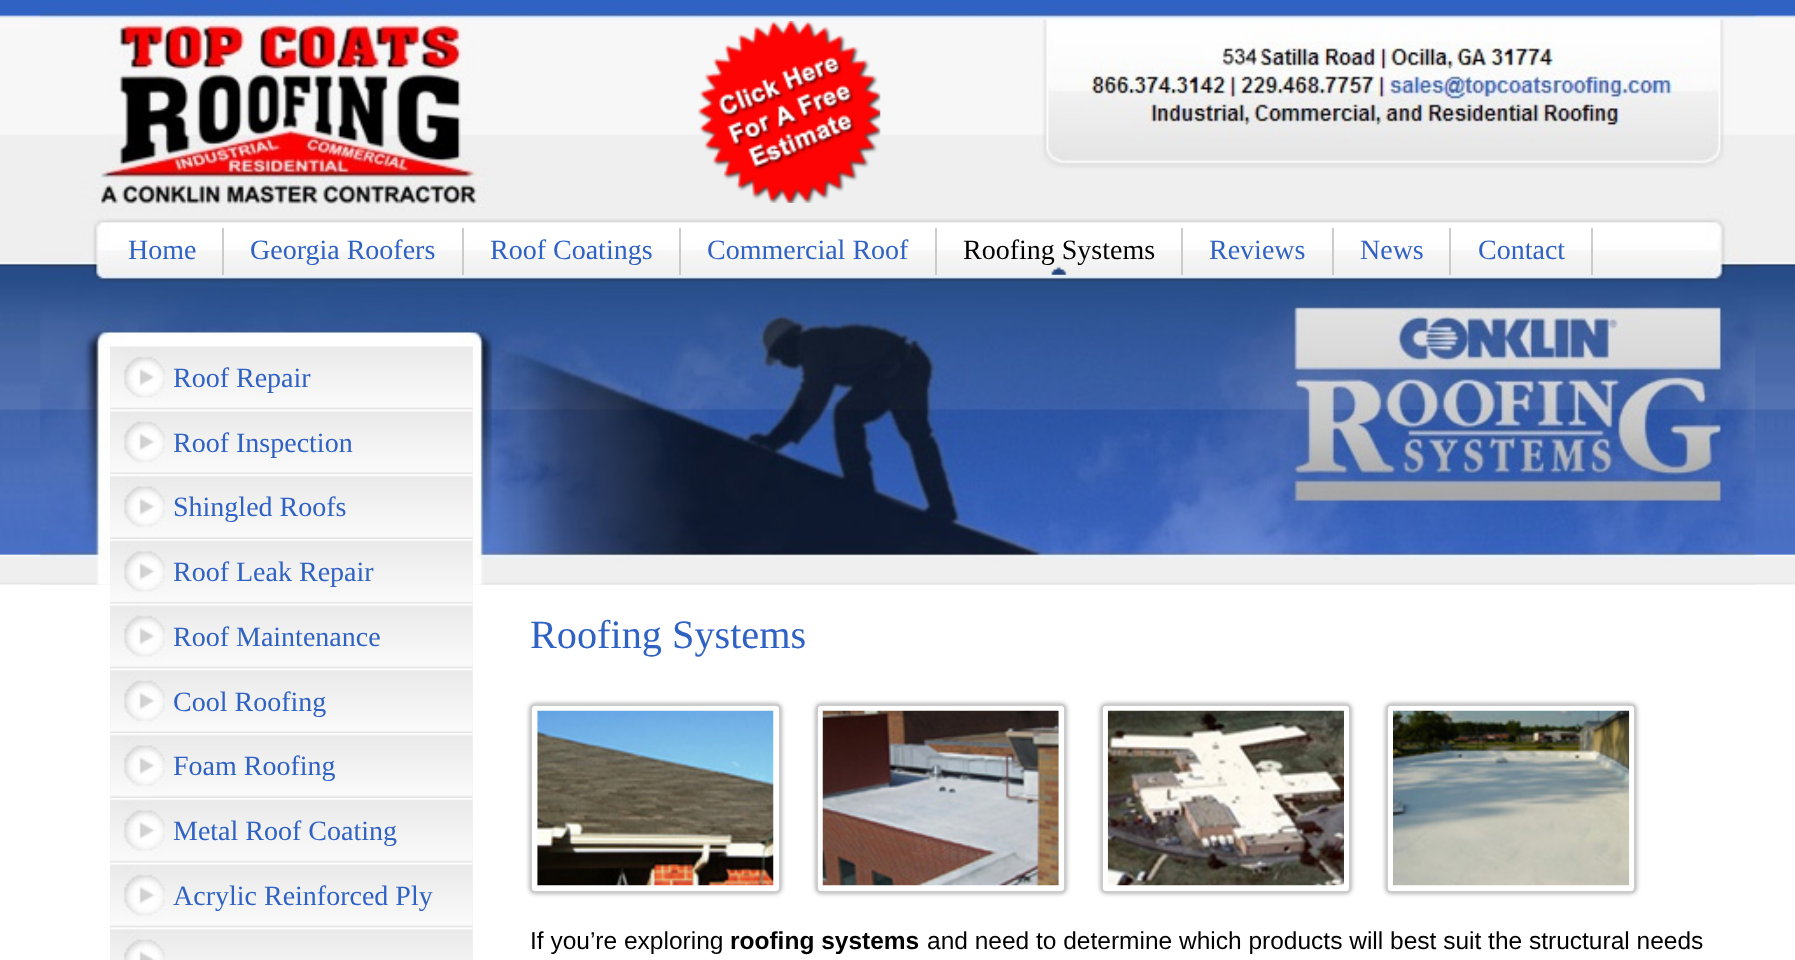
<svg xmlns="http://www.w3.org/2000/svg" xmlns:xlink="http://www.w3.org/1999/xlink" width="1795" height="960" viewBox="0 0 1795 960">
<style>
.cls-1{font:28px Liberation Serif;fill:#3062c4}
.cls-2{font:28px Liberation Serif;fill:#000000}
.cls-3{font:40.25px Liberation Serif;fill:#3062c4}
.cls-4{font:24.5px Liberation Sans;fill:#000000}
.cls-5{font:bold 24.5px Liberation Sans;fill:#000000}
</style>
<rect width="100%" height="100%" fill="#ffffff"/>
<image xlink:href="image0.png" x="0" y="0" width="1795" height="585"/>
<image xlink:href="image1.png" x="40" y="0" width="1716" height="585"/>
<image xlink:href="image2.png" x="698" y="21" width="183" height="182"/>
<rect fill="#cccccc" x="222" y="228" width="2" height="47"/>
<rect fill="#cccccc" x="462" y="228" width="2" height="47"/>
<rect fill="#cccccc" x="679" y="228" width="2" height="47"/>
<rect fill="#cccccc" x="935" y="228" width="2" height="47"/>
<image xlink:href="image3.png" x="1051" y="266" width="16" height="9"/>
<rect fill="#cccccc" x="1181" y="228" width="2" height="47"/>
<rect fill="#cccccc" x="1332" y="228" width="2" height="47"/>
<rect fill="#cccccc" x="1449" y="228" width="2" height="47"/>
<rect fill="#cccccc" x="1591" y="228" width="2" height="47"/>
<rect fill="#f3f3f4" x="110" y="345" width="363" height="615"/>
<image xlink:href="image4.png" x="110" y="345" width="363" height="65"/>
<image xlink:href="image5.png" x="110" y="409" width="363" height="65"/>
<image xlink:href="image6.png" x="110" y="474" width="363" height="65"/>
<image xlink:href="image7.png" x="110" y="539" width="363" height="65"/>
<image xlink:href="image8.png" x="110" y="603" width="363" height="66"/>
<image xlink:href="image5.png" x="110" y="668" width="363" height="65"/>
<image xlink:href="image6.png" x="110" y="733" width="363" height="65"/>
<image xlink:href="image7.png" x="110" y="798" width="363" height="65"/>
<image xlink:href="image8.png" x="110" y="862" width="363" height="66"/>
<image xlink:href="image9.png" x="110" y="927" width="363" height="33"/>
<rect fill="#999999" filter="blur(2.5px)" x="530" y="704" width="251" height="189" rx="5"/>
<rect fill="#ffffff" stroke="#cccccc" stroke-width="2" x="531" y="705" width="249" height="187" rx="4"/>
<image xlink:href="image10.png" x="537" y="710" width="237" height="176"/>
<rect fill="#999999" filter="blur(2.5px)" x="816" y="704" width="250" height="189" rx="5"/>
<rect fill="#ffffff" stroke="#cccccc" stroke-width="2" x="817" y="705" width="248" height="187" rx="4"/>
<image xlink:href="image11.png" x="822" y="710" width="237" height="176"/>
<rect fill="#999999" filter="blur(2.5px)" x="1101" y="704" width="250" height="189" rx="5"/>
<rect fill="#ffffff" stroke="#cccccc" stroke-width="2" x="1102" y="705" width="248" height="187" rx="4"/>
<image xlink:href="image12.png" x="1107" y="710" width="237" height="176"/>
<rect fill="#999999" filter="blur(2.5px)" x="1386" y="704" width="250" height="189" rx="5"/>
<rect fill="#ffffff" stroke="#cccccc" stroke-width="2" x="1387" y="705" width="248" height="187" rx="4"/>
<image xlink:href="image13.png" x="1393" y="710" width="237" height="176"/>
<text class="cls-1" x="128" y="259">Home</text>
<text class="cls-1" x="250" y="259">Georgia Roofers</text>
<text class="cls-1" x="490" y="259">Roof Coatings</text>
<text class="cls-1" x="707" y="259">Commercial Roof</text>
<text class="cls-2" x="963" y="259">Roofing Systems</text>
<text class="cls-1" x="1209" y="259">Reviews</text>
<text class="cls-1" x="1360" y="259">News</text>
<text class="cls-1" x="1478" y="259">Contact</text>
<text class="cls-1" x="173" y="387">Roof Repair</text>
<text class="cls-1" x="173" y="452">Roof Inspection</text>
<text class="cls-1" x="173" y="516">Shingled Roofs</text>
<text class="cls-1" x="173" y="581">Roof Leak Repair</text>
<text class="cls-1" x="173" y="646">Roof Maintenance</text>
<text class="cls-1" x="173" y="711">Cool Roofing</text>
<text class="cls-1" x="173" y="775">Foam Roofing</text>
<text class="cls-1" x="173" y="840">Metal Roof Coating</text>
<text class="cls-1" x="173" y="905">Acrylic Reinforced Ply</text>
<text class="cls-3" x="530" y="648">Roofing Systems</text>
<text class="cls-4" x="530" y="949">If you’re exploring</text>
<text class="cls-5" x="730" y="949">roofing systems</text>
<text class="cls-4" x="927" y="949">and need to determine which products will best suit the structural needs</text>
</svg>
